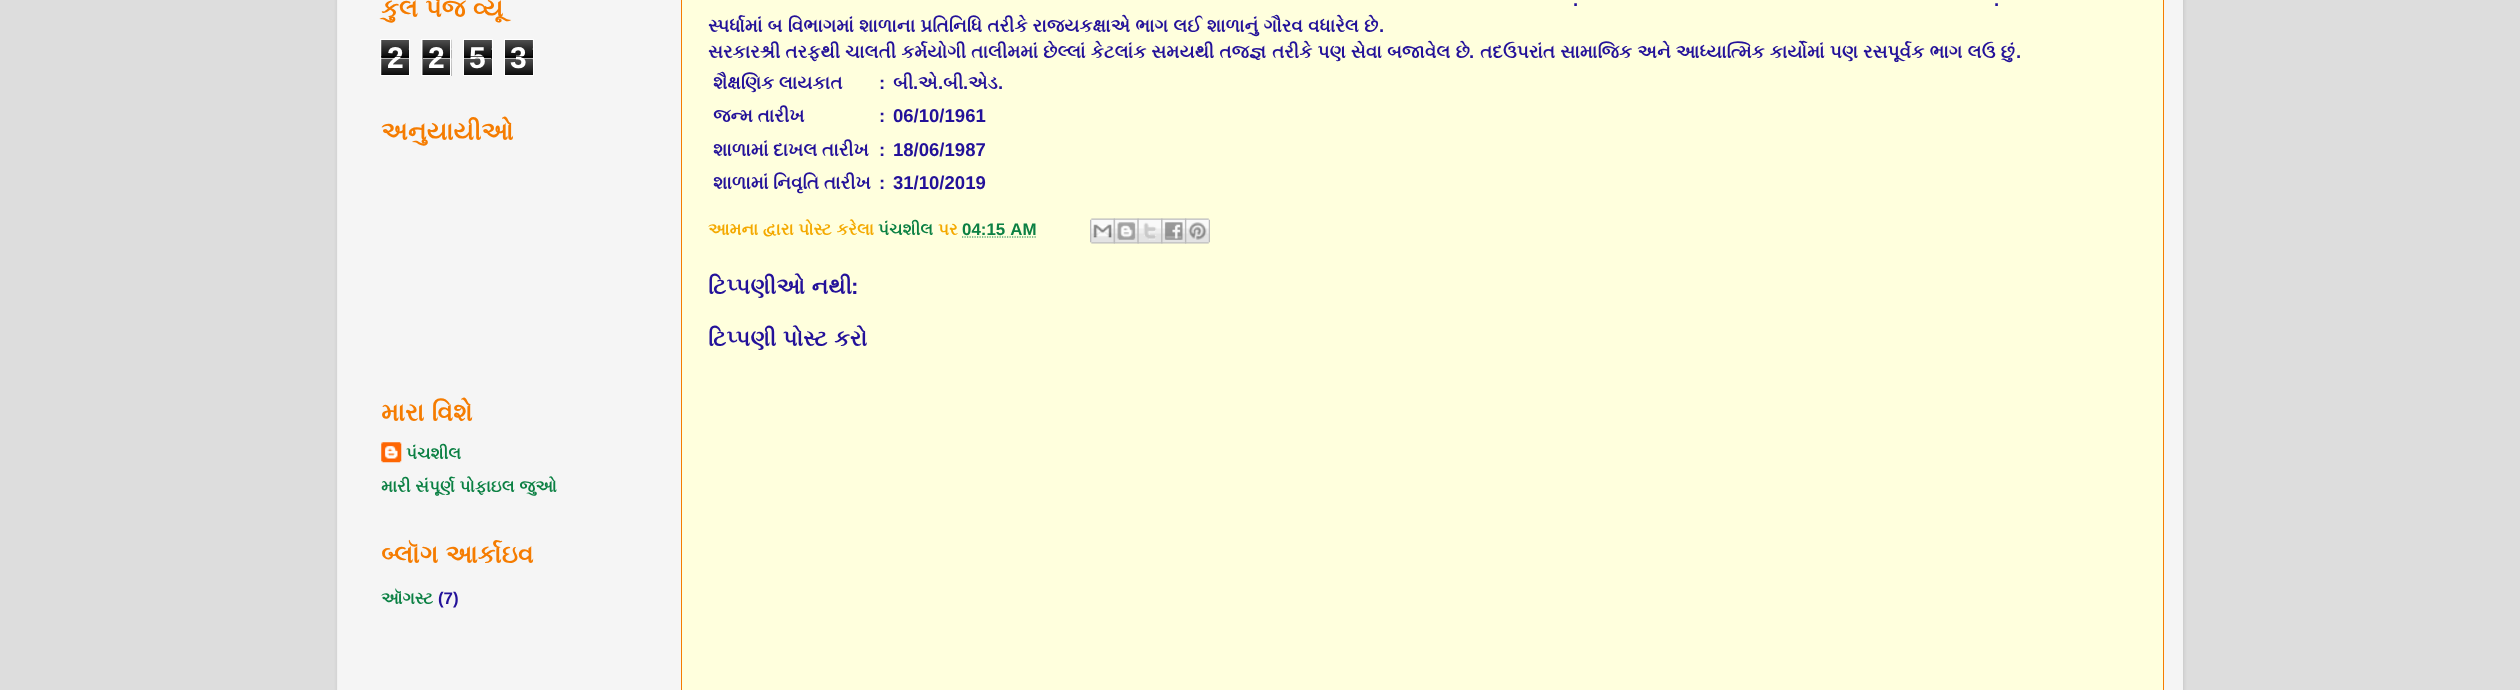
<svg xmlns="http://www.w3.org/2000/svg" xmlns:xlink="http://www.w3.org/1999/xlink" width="2520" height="690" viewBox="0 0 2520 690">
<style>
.cls-1{font:bold 25.25px FreeSerif;fill:#f57c00}
.cls-2{font:bold 30px Liberation Sans;fill:#ffffff}
.cls-3{font:bold 16.9px FreeSerif;fill:#0b8043}
.cls-4{font:bold 16.9px Liberation Sans;fill:#231199}
.cls-5{font:bold 18.55px Liberation Sans;fill:#231199}
.cls-6{font:bold 18.55px FreeSerif;fill:#231199}
.cls-7{font:bold 16.9px FreeSerif;fill:#f4a900}
.cls-8{font:bold 16.9px Liberation Sans;fill:#0b8043}
.cls-9{font:bold 22.5px FreeSerif;fill:#231199}
.cls-10{font:bold 22.5px Liberation Sans;fill:#231199}
</style>
<defs>
<clipPath id="clip1"><path d="M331 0H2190V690H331ZM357-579H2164C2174.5-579 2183-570.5 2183-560V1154C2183 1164.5 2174.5 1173 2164 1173H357C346.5 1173 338 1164.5 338 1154V-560C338-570.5 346.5-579 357-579Z" clip-rule="evenodd"/></clipPath>
</defs>
<rect width="100%" height="100%" fill="#dddddd"/>
<g clip-path="url(#clip1)">
<rect fill="#000000" fill-opacity="0.15" filter="blur(2px)" x="338" y="-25" width="1845" height="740" rx="19"/>
</g>
<rect fill="#ffffff" fill-opacity="0.7" x="337" y="0" width="1846" height="690"/>
<image xlink:href="image0.png" x="381" y="40" width="28" height="35"/>
<rect fill="none" stroke="#ffffff" x="380.5" y="39.5" width="29" height="36"/>
<image xlink:href="image1.png" x="422" y="39" width="30" height="37"/>
<rect fill="none" stroke="#ffffff" x="421.5" y="39.5" width="29" height="36"/>
<image xlink:href="image2.png" x="464" y="40" width="28" height="35"/>
<rect fill="none" stroke="#ffffff" x="463.5" y="39.5" width="29" height="36"/>
<image xlink:href="image3.png" x="505" y="40" width="28" height="35"/>
<rect fill="none" stroke="#ffffff" x="504.5" y="39.5" width="29" height="36"/>
<image xlink:href="image4.png" x="381" y="442" width="21" height="21"/>
<rect fill="#ffffdd" stroke="#f57c00" x="681.5" y="-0.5" width="1482" height="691"/>
<path fill="none" stroke="#0b8043" stroke-width="1.2" stroke-dasharray="1.25 1.25" d="M962 237H1036"/>
<image xlink:href="image5.png" x="1090" y="218" width="25" height="26"/>
<image xlink:href="image6.png" x="1113" y="218" width="26" height="26"/>
<image xlink:href="image7.png" x="1137" y="218" width="26" height="26"/>
<image xlink:href="image8.png" x="1161" y="218" width="26" height="26"/>
<image xlink:href="image9.png" x="1185" y="218" width="25" height="26"/>
<text class="cls-1" x="381" y="17" word-spacing="1">કુલ પેજ વ્યૂ</text>
<text class="cls-2" x="387" y="68">2</text>
<rect fill="#000000" fill-opacity="0.65" x="381" y="56" width="28" height="1"/>
<rect fill="#ffffff" fill-opacity="0.65" x="381" y="58" width="28" height="1"/>
<text class="cls-2" x="428" y="68">2</text>
<rect fill="#000000" fill-opacity="0.65" x="423" y="56" width="27" height="1"/>
<rect fill="#ffffff" fill-opacity="0.65" x="423" y="58" width="27" height="1"/>
<text class="cls-2" x="469" y="68">5</text>
<rect fill="#000000" fill-opacity="0.65" x="464" y="56" width="27" height="1"/>
<rect fill="#ffffff" fill-opacity="0.65" x="464" y="58" width="27" height="1"/>
<text class="cls-2" x="510" y="68">3</text>
<rect fill="#000000" fill-opacity="0.65" x="505" y="56" width="28" height="1"/>
<rect fill="#ffffff" fill-opacity="0.65" x="505" y="58" width="28" height="1"/>
<text class="cls-1" x="381" y="140">અનુયાયીઓ</text>
<text class="cls-1" x="381" y="421" word-spacing="1">મારા વિશે</text>
<text class="cls-3" x="406" y="459">પંચશીલ</text>
<text class="cls-3" x="381" y="492" word-spacing="0.5">મારી સંપૂર્ણ પોફાઇલ જુઓ</text>
<text class="cls-1" x="381" y="563" word-spacing="1">બ્લૉગ આર્કાઇવ</text>
<text class="cls-3" x="381" y="604">ઑગસ્ટ</text>
<text class="cls-4" x="438" y="604">(7)</text>
<text class="cls-5" x="1573" y="6">.</text>
<text class="cls-5" x="1994" y="6">.</text>
<text class="cls-6" x="708" y="32" word-spacing="0.5">સ્પર્ધામાં બ વિભાગમાં</text>
<text class="cls-6" x="859" y="32" word-spacing="0.5">શાળાના પ્રતિનિધિ તરીકે રાજયકક્ષાએ ભાગ લઈ શાળાનું ગૌરવ વધારેલ છે</text>
<text class="cls-5" x="1379" y="32">.</text>
<text class="cls-6" x="708" y="58" word-spacing="0.5">સરકારશ્રી તરફથી ચાલતી કર્મયોગી તાલીમમાં છેલ્લાં કેટલાંક સમયથી તજજ્ઞ</text>
<text class="cls-6" x="1272" y="58" word-spacing="0.5">તરીકે પણ સેવા બજાવેલ છે</text>
<text class="cls-5" x="1469" y="58">.</text>
<text class="cls-6" x="1480" y="58" word-spacing="0.5">તદઉપરાંત સામાજિક અને આધ્યાત્મિક કાર્યોમાં પણ</text>
<text class="cls-6" x="1863" y="58" word-spacing="0.5">રસપૂર્વક ભાગ લઉ છું</text>
<text class="cls-5" x="2016" y="58">.</text>
<text class="cls-6" x="713" y="89">શૈક્ષણિક લાયકાત</text>
<text class="cls-5" x="879" y="89">:</text>
<text class="cls-6" x="893" y="89">બી</text>
<text class="cls-5" x="913" y="89">.</text>
<text class="cls-6" x="918" y="89">એ</text>
<text class="cls-6" x="968" y="89">એડ</text>
<text class="cls-5" x="938" y="89">.</text>
<text class="cls-6" x="943" y="89">બી</text>
<text class="cls-5" x="963" y="89">.</text>
<text class="cls-5" x="998" y="89">.</text>
<text class="cls-6" x="713" y="122">જન્મ તારીખ</text>
<text class="cls-5" x="879" y="122">:</text>
<text class="cls-5" x="893" y="122">06/10/1961</text>
<text class="cls-6" x="713" y="156">શાળામાં દાખલ તારીખ</text>
<text class="cls-5" x="879" y="156">:</text>
<text class="cls-5" x="893" y="156">18/06/1987</text>
<text class="cls-6" x="713" y="189">શાળામાં નિવૃતિ તારીખ</text>
<text class="cls-5" x="879" y="189">:</text>
<text class="cls-5" x="893" y="189">31/10/2019</text>
<text class="cls-7" x="708" y="235" word-spacing="0.5">આમના દ્વારા પોસ્ટ કરેલા</text>
<text class="cls-3" x="878" y="235">પંચશીલ</text>
<text class="cls-7" x="938" y="235">પર</text>
<text class="cls-8" x="962" y="235" word-spacing="1">04:15 AM</text>
<text class="cls-9" x="708" y="294" word-spacing="1">ટિપ્પણીઓ નથી</text>
<text class="cls-10" x="851" y="294">:</text>
<text class="cls-9" x="708" y="346" word-spacing="1">ટિપ્પણી પોસ્ટ કરો</text>
</svg>
